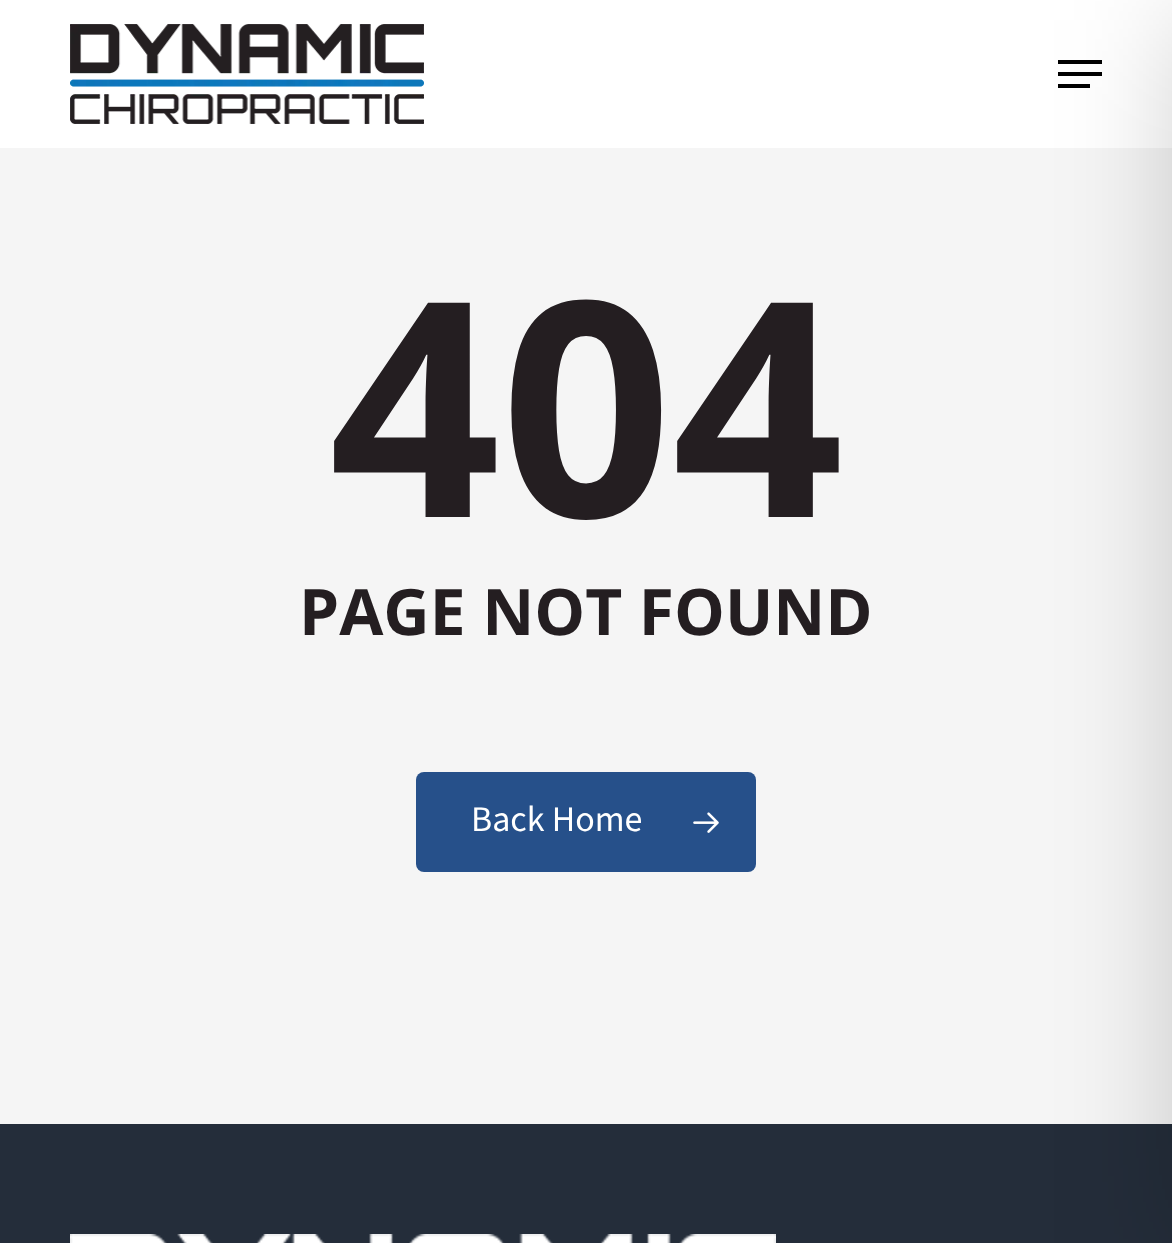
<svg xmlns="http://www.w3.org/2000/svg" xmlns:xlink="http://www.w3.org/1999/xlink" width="1172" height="1243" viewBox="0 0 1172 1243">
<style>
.cls-1{font:bold 300px Open Sans;fill:#241e21}
.cls-2{font:bold 64px Open Sans;fill:#241e21}
.cls-3{font:36px 'Source Sans 3';fill:#ffffff}
</style>
<rect width="100%" height="100%" fill="#f5f5f5"/>
<rect fill="#ffffff" x="0" y="0" width="1172" height="148"/>
<image xlink:href="image0.png" x="70" y="24" width="354" height="100"/>
<rect fill="#000000" x="1058" y="60" width="44" height="4"/>
<rect fill="#000000" x="1058" y="84" width="32" height="4"/>
<rect fill="#000000" x="1058" y="72" width="44" height="4"/>
<rect fill="#26508a" x="416" y="772" width="340" height="100" rx="8"/>
<image xlink:href="image1.png" x="693" y="812" width="26" height="21"/>
<rect fill="#242d3a" x="0" y="1124" width="1172" height="119"/>
<image xlink:href="image2.png" x="70" y="1234" width="706" height="9"/>
<rect fill="#000000" fill-opacity="0.2" filter="blur(60px)" x="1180" y="20" width="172" height="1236"/>
<text class="cls-1" x="329" y="517">404</text>
<text class="cls-2" x="299" y="635">PAGE NOT FOUND</text>
<text class="cls-3" x="471" y="831">Back Home</text>
</svg>
